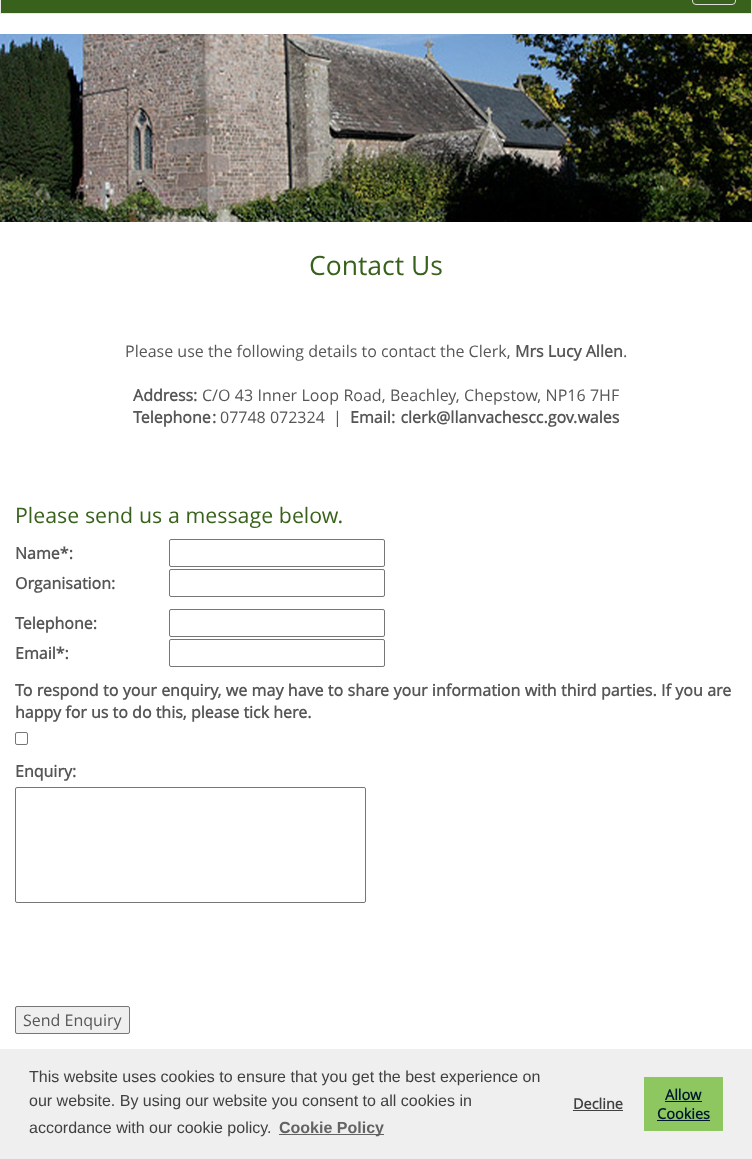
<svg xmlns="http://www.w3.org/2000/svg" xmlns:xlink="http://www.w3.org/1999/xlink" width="752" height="1159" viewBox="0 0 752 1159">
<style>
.cls-1{font:26.5px Open Sans;fill:#38621b}
.cls-2{font:16px Open Sans;fill:#565656}
.cls-3{font:bold 16px Open Sans;fill:#565656}
.cls-4{font:21.3px Open Sans;fill:#38621b}
.cls-5{font:16px Liberation Sans;fill:#404040}
.cls-6{font:bold 16px Liberation Sans;fill:#636363}
.cls-7{font:bold 14.5px Open Sans;fill:#404040}
.cls-8{font:bold 14.5px Open Sans;fill:#00182e}
</style>
<rect width="100%" height="100%" fill="#ffffff"/>
<rect fill="#38621b" stroke="#e7e7e7" x="0.5" y="-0.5" width="751" height="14"/>
<rect fill="none" stroke="#dddddd" x="692.5" y="-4.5" width="43" height="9" rx="3.5"/>
<image xlink:href="image0.png" x="0" y="34" width="752" height="188"/>
<rect fill="none" stroke="#767676" x="169.5" y="539.5" width="215" height="27" rx="1.5"/>
<rect fill="none" stroke="#767676" x="169.5" y="569.5" width="215" height="27" rx="1.5"/>
<rect fill="none" stroke="#767676" x="169.5" y="609.5" width="215" height="27" rx="1.5"/>
<rect fill="none" stroke="#767676" x="169.5" y="639.5" width="215" height="27" rx="1.5"/>
<rect fill="none" stroke="#767676" x="15.5" y="732.5" width="12" height="12" rx="1.5"/>
<rect fill="none" stroke="#767676" x="15.5" y="787.5" width="350" height="115" rx="1.5"/>
<rect fill="#efefef" stroke="#767676" x="15.5" y="1006.5" width="114" height="27" rx="1.5"/>
<rect fill="#efefef" x="0" y="1049" width="752" height="110"/>
<rect fill="#636363" x="279" y="1134" width="105" height="1"/>
<rect fill="#404040" x="573" y="1110" width="50" height="1"/>
<rect fill="#8ec760" x="644" y="1077" width="79" height="54"/>
<rect fill="#00182e" x="665" y="1101" width="37" height="1"/>
<rect fill="#00182e" x="657" y="1120" width="53" height="1"/>
<text class="cls-1" x="309" y="275">Contact Us</text>
<text class="cls-2" x="125" y="357">Please use the following details to contact the Clerk,</text>
<text class="cls-3" x="515" y="357">Mrs Lucy Allen</text>
<text class="cls-2" x="623" y="357">.</text>
<text class="cls-3" x="133" y="401">Address</text>
<text class="cls-3" x="193" y="401">:</text>
<text class="cls-2" x="202" y="401" word-spacing="0.25">C/O 43 Inner Loop Road, Beachley, Chepstow, NP16 7HF</text>
<text class="cls-3" x="133" y="423">Telephone</text>
<text class="cls-3" x="212" y="423">:</text>
<text class="cls-2" xml:space="preserve" x="220" y="423">07748 072324  |</text>
<text class="cls-3" x="350" y="423">Email</text>
<text class="cls-3" x="391" y="423" word-spacing="1">: clerk@llanvachescc.gov.wales</text>
<text class="cls-4" x="15" y="523" word-spacing="0.25">Please send us a message below.</text>
<text class="cls-3"><tspan x="15" y="559">Name*:</tspan><tspan x="15" y="589">Organisation:</tspan></text>
<text class="cls-3"><tspan x="15" y="629">Telephone:</tspan><tspan x="15" y="659">Email*:</tspan></text>
<text class="cls-3"><tspan x="15" y="696" word-spacing="0.2">To respond to your enquiry, we may have to share your information with third parties. If you are</tspan><tspan x="15" y="718">happy for us to do this, please tick here.</tspan></text>
<text class="cls-3" x="15" y="777">Enquiry:</text>
<text class="cls-2" x="23" y="1026">Send Enquiry</text>
<text class="cls-5"><tspan x="29" y="1082">This website uses cookies to ensure that you get the best experience on</tspan><tspan x="29" y="1106">our website. By using our website you consent to all cookies in</tspan><tspan x="29" y="1133">accordance with our cookie policy.</tspan></text>
<text class="cls-6" x="279" y="1133">Cookie Policy</text>
<text class="cls-7" x="573" y="1109">Decline</text>
<text class="cls-8" x="665" y="1100">Allow</text>
<text class="cls-8" x="657" y="1119">Cookies</text>
</svg>
